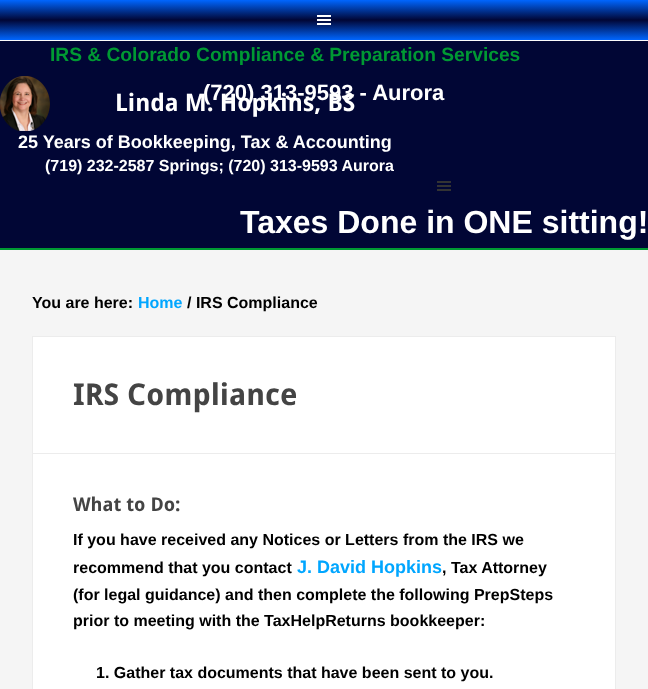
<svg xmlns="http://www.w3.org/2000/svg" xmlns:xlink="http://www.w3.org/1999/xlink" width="648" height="689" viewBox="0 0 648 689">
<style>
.cls-1{font:bold 19.2px Liberation Sans;fill:#009933}
.cls-2{font:bold 24px Droid Sans;fill:#ffffff}
.cls-3{font:bold 22px Liberation Sans;fill:#ffffff}
.cls-4{font:bold 18px Liberation Sans;fill:#ffffff}
.cls-5{font:bold 16px Liberation Sans;fill:#ffffff}
.cls-6{font:bold 32px Liberation Sans;fill:#ffffff}
.cls-7{font:bold 16px Liberation Sans;fill:#000000}
.cls-8{font:bold 16px Liberation Sans;fill:#00a6ff}
.cls-9{font:bold 30px Droid Sans;fill:#444444}
.cls-10{font:bold 19px Droid Sans;fill:#444444}
.cls-11{font:bold 18px Liberation Sans;fill:#00a6ff}
</style>
<defs>
<linearGradient id="g1" gradientUnits="userSpaceOnUse" x1="324" y1="0" x2="324" y2="40"><stop offset="0" stop-color="#0066ff"/><stop offset="0.5" stop-color="#010635"/><stop offset="1" stop-color="#0066ff"/></linearGradient>
</defs>
<rect width="100%" height="100%" fill="#fcfcfc"/>
<rect fill="url(#g1)" x="0" y="0" width="648" height="40"/>
<image xlink:href="image0.png" x="317" y="15" width="14" height="10"/>
<rect fill="#010635" x="0" y="41" width="648" height="207"/>
<image xlink:href="image1.png" x="0" y="76" width="50" height="55"/>
<image xlink:href="image2.png" x="437" y="181" width="14" height="10"/>
<rect fill="#f5f5f5" x="0" y="250" width="648" height="439"/>
<rect fill="#009933" x="0" y="248" width="648" height="2"/>
<rect fill="#ffffff" stroke="#ececec" x="32.5" y="336.5" width="583" height="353"/>
<rect fill="#ececec" x="33" y="453" width="582" height="1"/>
<text class="cls-1" x="50" y="61">IRS &amp; Colorado Compliance &amp; Preparation Services</text>
<text class="cls-2" x="115" y="111">Linda M. Hopkins, BS</text>
<text class="cls-3" x="203" y="100">(720) 313-9593 - Aurora</text>
<text class="cls-4" x="18" y="148">25 Years of Bookkeeping, Tax &amp; Accounting</text>
<text class="cls-5" x="45" y="171">(719) 232-2587 Springs; (720) 313-9593 Aurora</text>
<text class="cls-6" x="240" y="233">Taxes Done in ONE sitting!</text>
<text class="cls-7" x="32" y="308">You are here:</text>
<text class="cls-8" x="138" y="308">Home</text>
<text class="cls-7" x="187" y="308">/ IRS Compliance</text>
<text class="cls-9" x="73" y="405">IRS Compliance</text>
<text class="cls-10" x="73" y="511">What to Do:</text>
<text class="cls-7"><tspan x="73" y="545">If you have received any Notices or Letters from the IRS we</tspan><tspan x="73" y="573">recommend that you contact</tspan></text>
<text class="cls-11" x="297" y="573">J. David Hopkins</text>
<text class="cls-7" x="442" y="573">, Tax Attorney</text>
<text class="cls-7"><tspan x="73" y="600">(for legal guidance) and then complete the following PrepSteps</tspan><tspan x="73" y="626">prior to meeting with the TaxHelpReturns bookkeeper:</tspan></text>
<text class="cls-7" x="96" y="678">1. Gather tax documents that have been sent to you.</text>
</svg>
